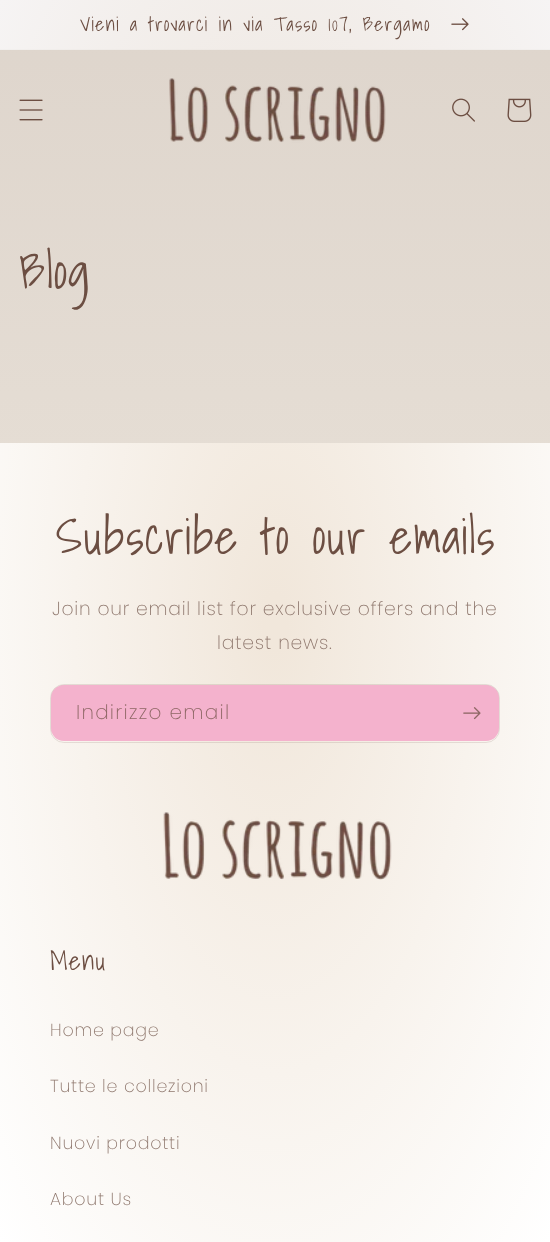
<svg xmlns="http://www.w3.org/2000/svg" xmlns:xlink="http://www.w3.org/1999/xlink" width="550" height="1242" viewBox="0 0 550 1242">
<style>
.cls-1{font:19.5px Shadows Into Light;letter-spacing:1.25px;fill:#6c4e42}
.cls-2{font:48.75px Shadows Into Light;letter-spacing:1px;fill:#6c4e42}
.cls-3{font:300 18.75px Poppins;letter-spacing:0.75px;fill:#8f786e}
.cls-4{font:300 20px Poppins;letter-spacing:1.25px;fill:#8e6765}
.cls-5{font:26px Shadows Into Light;letter-spacing:1px;fill:#6c4e42}
.cls-6{font:300 17.5px Poppins;letter-spacing:0.75px;fill:#8f786e}
</style>
<defs>
<linearGradient id="g1" gradientUnits="userSpaceOnUse" x1="275" y1="0" x2="275" y2="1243"><stop offset="0" stop-color="#ded5cc"/><stop offset="1" stop-color="#f1ebe2"/></linearGradient>
<radialGradient id="g2" gradientUnits="userSpaceOnUse" cx="0" cy="0" r="1" gradientTransform="matrix(389 0 0 879 275 621)"><stop offset="0.03" stop-color="#e9ded2"/><stop offset="1" stop-color="#f6f4f4"/></radialGradient>
<radialGradient id="g3" gradientUnits="userSpaceOnUse" cx="0" cy="0" r="1" gradientTransform="matrix(389 0 0 879 275 621)"><stop offset="0.03" stop-color="#e6dbcf"/><stop offset="1" stop-color="#f3f1f0"/></radialGradient>
<radialGradient id="g4" gradientUnits="userSpaceOnUse" cx="0" cy="0" r="1" gradientTransform="matrix(389 0 0 879 275 621)"><stop offset="0.03" stop-color="#f1e7db"/><stop offset="1" stop-color="#ffffff"/></radialGradient>
</defs>
<rect width="100%" height="100%" fill="#ffffff"/>
<rect fill="url(#g1)" x="0" y="50" width="550" height="393"/>
<rect fill="url(#g2)" x="0" y="0" width="550" height="49"/>
<rect fill="url(#g3)" x="0" y="49" width="550" height="1"/>
<image xlink:href="image0.png" x="451" y="18" width="18" height="13"/>
<image xlink:href="image1.png" x="19" y="99" width="24" height="22"/>
<image xlink:href="image2.png" x="169" y="78" width="217" height="65"/>
<image xlink:href="image3.png" x="452" y="98" width="23" height="24"/>
<image xlink:href="image4.png" x="507" y="98" width="25" height="24"/>
<rect fill="url(#g4)" x="0" y="443" width="550" height="348"/>
<rect fill="#f4b2cd" x="51" y="685" width="448" height="56" rx="13"/>
<rect fill="none" stroke="#6c4e42" stroke-opacity="0.15" x="50.5" y="684.5" width="449" height="58" rx="13.5"/>
<image xlink:href="image5.png" x="463" y="707" width="18" height="13"/>
<rect fill="url(#g4)" x="0" y="791" width="550" height="451"/>
<image xlink:href="image6.png" x="163" y="812" width="229" height="68"/>
<text class="cls-1" x="80" y="31">Vieni a trovarci in via Tasso 107, Bergamo</text>
<text class="cls-2" x="19" y="289">Blog</text>
<text class="cls-2" x="56" y="554">Subscribe to our emails</text>
<text class="cls-3" x="52" y="615">Join our email list for exclusive offers and the</text>
<text class="cls-3" x="217" y="649">latest news.</text>
<text class="cls-4" x="76" y="719">Indirizzo email</text>
<text class="cls-5" x="50" y="970">Menu</text>
<text class="cls-6" x="50" y="1036">Home page</text>
<text class="cls-6" x="50" y="1092">Tutte le collezioni</text>
<text class="cls-6" x="50" y="1149">Nuovi prodotti</text>
<text class="cls-6" x="50" y="1205">About Us</text>
</svg>
